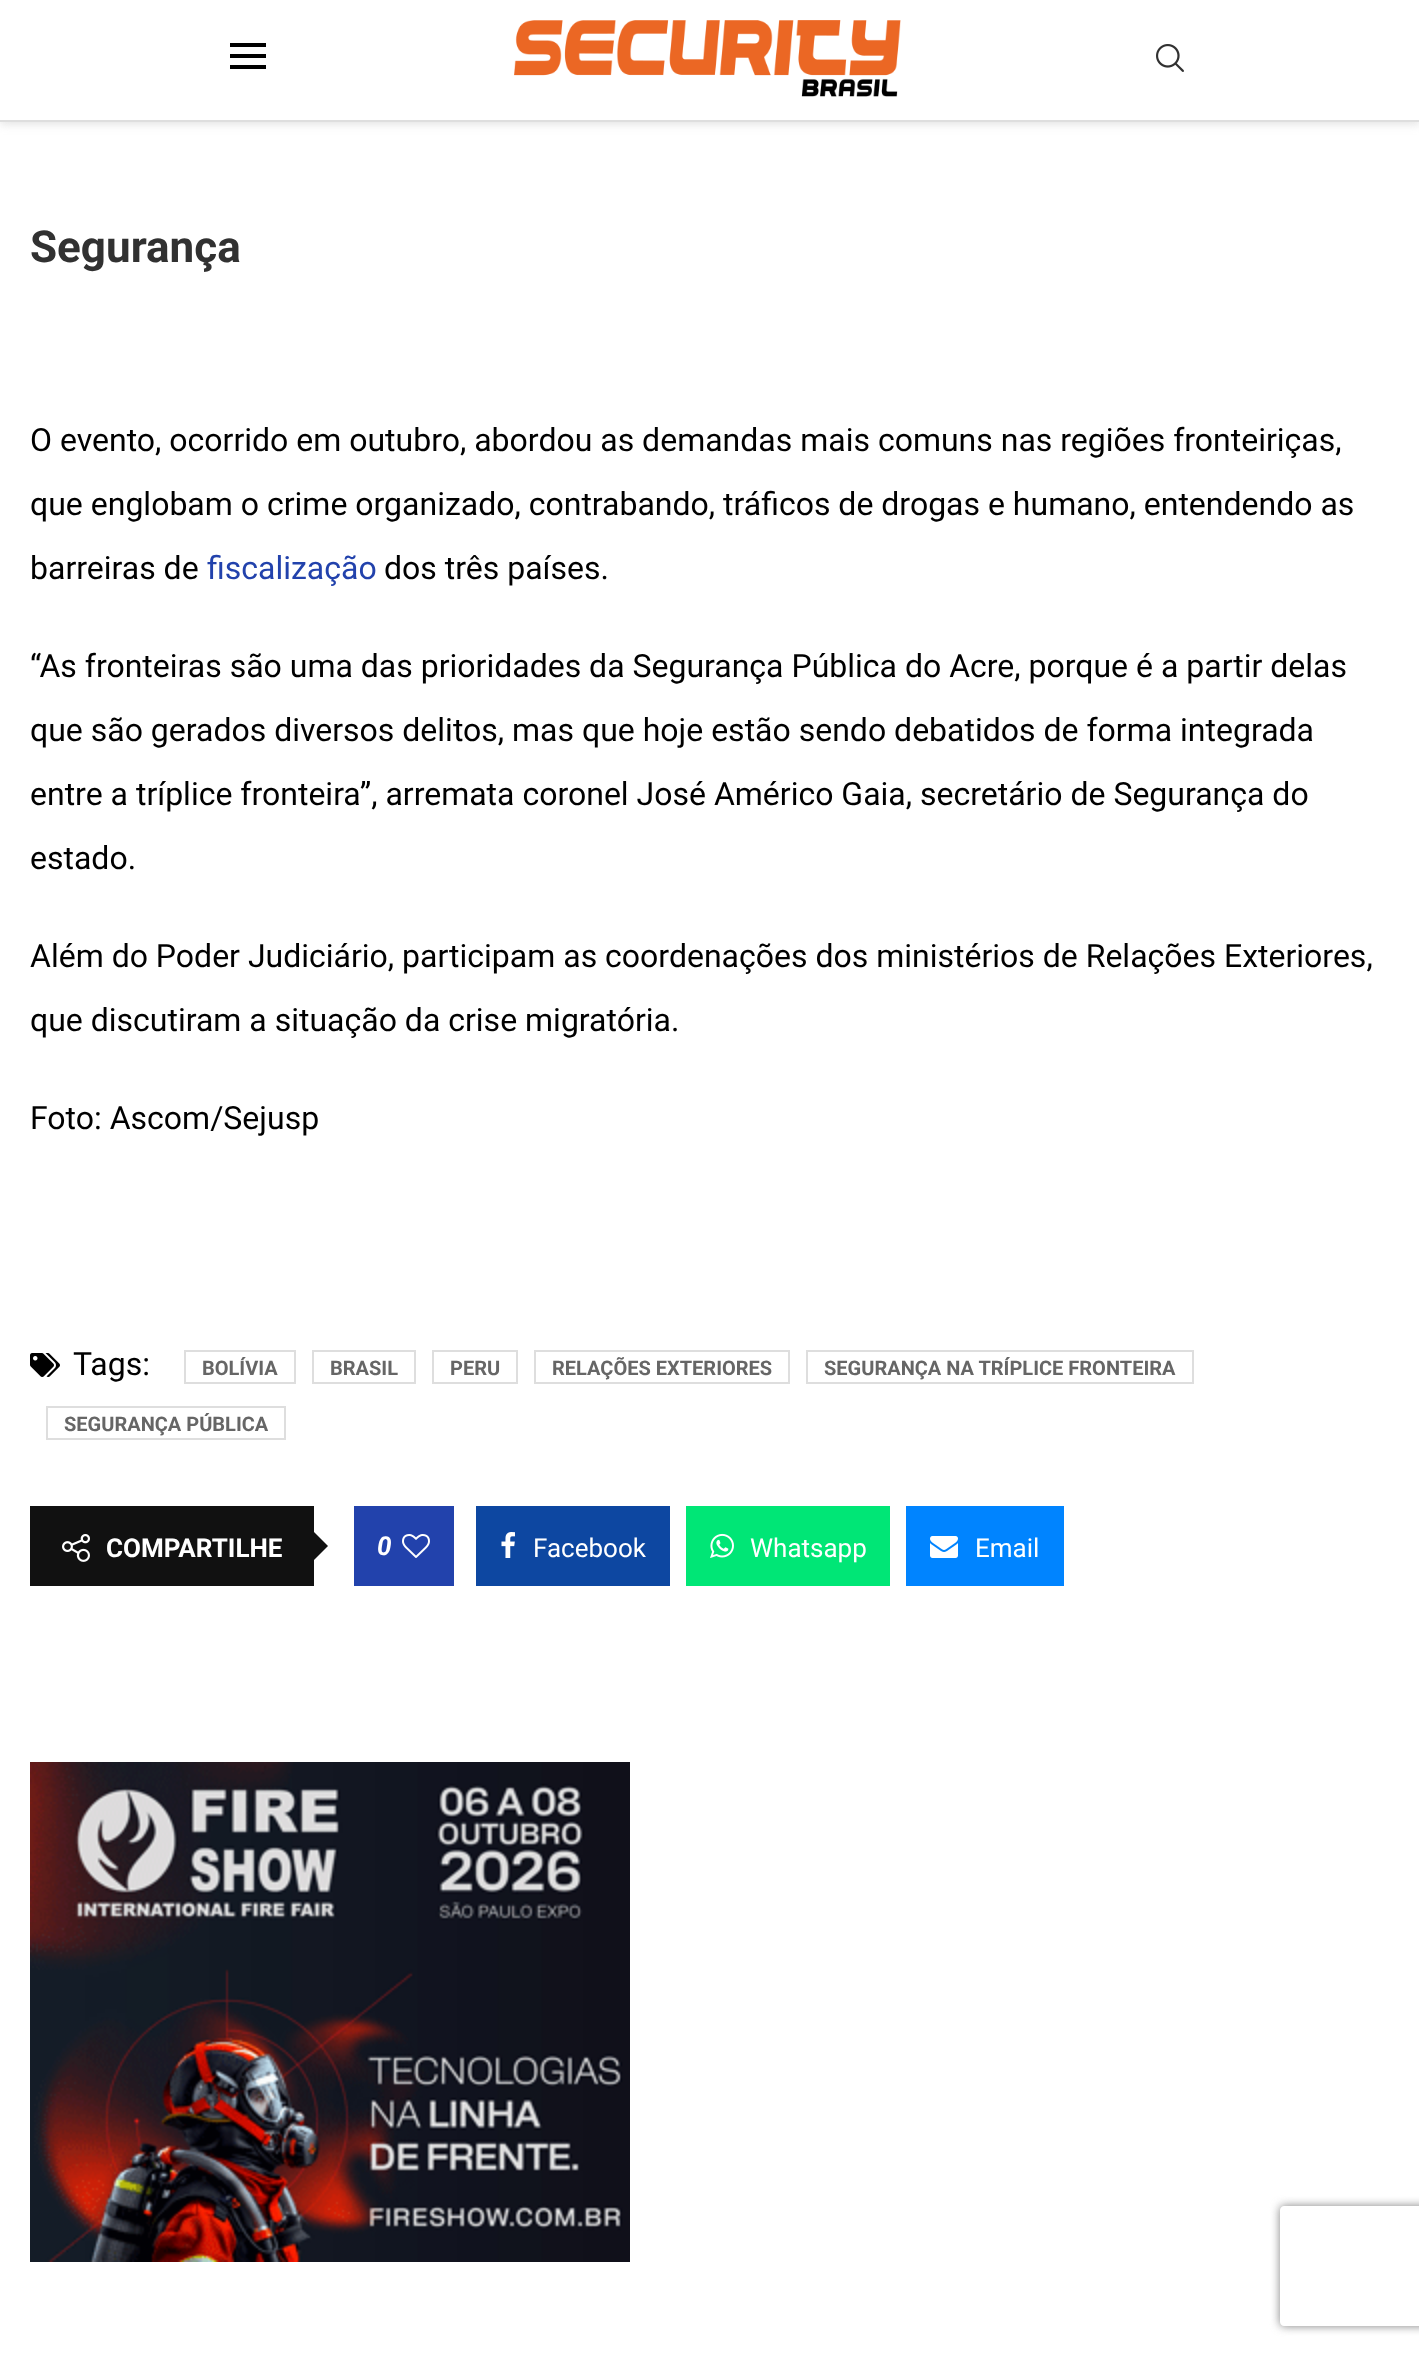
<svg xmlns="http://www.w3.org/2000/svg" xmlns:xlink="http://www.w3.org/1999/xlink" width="1419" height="2354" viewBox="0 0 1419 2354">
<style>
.cls-1{font:bold 44px Roboto;fill:#313131}
.cls-2{font:32px Roboto;fill:#000000}
.cls-3{font:32px Roboto;fill:#2242ac}
.cls-4{font:bold 20px Roboto;fill:#666666}
.cls-5{font:bold 26px Roboto;fill:#ffffff}
.cls-6{font:italic bold 26px Roboto;fill:#ffffff}
.cls-7{font:26px Roboto;fill:#ffffff}
</style>
<defs>
<clipPath id="clip1"><path d="M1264 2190H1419V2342H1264ZM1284 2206H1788C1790 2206 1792 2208 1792 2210V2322C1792 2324 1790 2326 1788 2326H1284C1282 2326 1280 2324 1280 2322V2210C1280 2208 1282 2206 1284 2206Z" clip-rule="evenodd"/></clipPath>
</defs>
<rect width="100%" height="100%" fill="#ffffff"/>
<rect fill="#bebebe" fill-opacity="0.46" filter="blur(5px)" x="0" y="2" width="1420" height="122"/>
<rect fill="#ffffff" x="0" y="0" width="1419" height="120"/>
<rect fill="#dedede" x="0" y="120" width="1419" height="2"/>
<rect fill="#000000" x="230" y="43" width="36" height="4"/>
<rect fill="#000000" x="230" y="54" width="36" height="4"/>
<rect fill="#000000" x="230" y="65" width="36" height="4"/>
<image xlink:href="image0.png" x="514" y="20" width="387" height="77"/>
<image xlink:href="image1.png" x="1156" y="44" width="28" height="28"/>
<image xlink:href="image2.png" x="30" y="1353" width="30" height="24"/>
<rect fill="none" stroke="#dedede" stroke-width="2" x="185" y="1351" width="110" height="32"/>
<rect fill="none" stroke="#dedede" stroke-width="2" x="313" y="1351" width="102" height="32"/>
<rect fill="none" stroke="#dedede" stroke-width="2" x="433" y="1351" width="84" height="32"/>
<rect fill="none" stroke="#dedede" stroke-width="2" x="535" y="1351" width="254" height="32"/>
<rect fill="none" stroke="#dedede" stroke-width="2" x="807" y="1351" width="386" height="32"/>
<rect fill="none" stroke="#dedede" stroke-width="2" x="47" y="1407" width="238" height="32"/>
<rect fill="#111111" x="30" y="1506" width="284" height="80"/>
<image xlink:href="image3.png" x="62" y="1534" width="28" height="28"/>
<path fill="#111111" d="M312 1562V1530L328 1546Z"/>
<rect fill="#2242ac" x="354" y="1506" width="100" height="80"/>
<image xlink:href="image4.png" x="402" y="1534" width="28" height="24"/>
<rect fill="#0d47a1" x="476" y="1506" width="194" height="80"/>
<image xlink:href="image5.png" x="501" y="1532" width="14" height="26"/>
<rect fill="#00e676" x="686" y="1506" width="204" height="80"/>
<image xlink:href="image6.png" x="710" y="1533" width="24" height="25"/>
<rect fill="#0084ff" x="906" y="1506" width="158" height="80"/>
<image xlink:href="image7.png" x="930" y="1536" width="28" height="22"/>
<image xlink:href="image8.png" x="30" y="1762" width="600" height="500"/>
<g clip-path="url(#clip1)">
<rect fill="#808080" filter="blur(5px)" x="1280" y="2206" width="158" height="120" rx="4"/>
</g>
<text class="cls-1" x="30" y="262">Segurança</text>
<text class="cls-2" x="30" y="451">O evento, ocorrido em outubro, abordou as demandas mais comuns nas regiões fronteiriças,</text>
<text class="cls-2" x="30" y="515">que englobam o crime organizado, contrabando, tráficos de drogas e humano, entendendo as</text>
<text class="cls-2" x="30" y="579">barreiras de</text>
<text class="cls-3" x="207" y="579">fiscalização</text>
<text class="cls-2" x="384" y="579">dos três países.</text>
<text class="cls-2" x="30" y="677">“As fronteiras são uma das prioridades da Segurança Pública do Acre, porque é a partir delas</text>
<text class="cls-2" x="30" y="741">que são gerados diversos delitos, mas que hoje estão sendo debatidos de forma integrada</text>
<text class="cls-2" x="30" y="805">entre a tríplice fronteira”, arremata coronel José Américo Gaia, secretário de Segurança do</text>
<text class="cls-2" x="30" y="869">estado.</text>
<text class="cls-2" x="30" y="967">Além do Poder Judiciário, participam as coordenações dos ministérios de Relações Exteriores,</text>
<text class="cls-2" x="30" y="1031">que discutiram a situação da crise migratória.</text>
<text class="cls-2" x="30" y="1129">Foto: Ascom/Sejusp</text>
<text class="cls-2" x="73" y="1375">Tags:</text>
<text class="cls-4" x="202" y="1375">BOLÍVIA</text>
<text class="cls-4" x="330" y="1375">BRASIL</text>
<text class="cls-4" x="450" y="1375">PERU</text>
<text class="cls-4" x="552" y="1375">RELAÇÕES EXTERIORES</text>
<text class="cls-4" x="824" y="1375">SEGURANÇA NA TRÍPLICE FRONTEIRA</text>
<text class="cls-4" x="64" y="1431">SEGURANÇA PÚBLICA</text>
<text class="cls-5" x="106" y="1557">COMPARTILHE</text>
<text class="cls-6" x="377" y="1555">0</text>
<text class="cls-7" x="533" y="1557">Facebook</text>
<text class="cls-7" x="750" y="1557">Whatsapp</text>
<text class="cls-7" x="975" y="1557">Email</text>
</svg>
